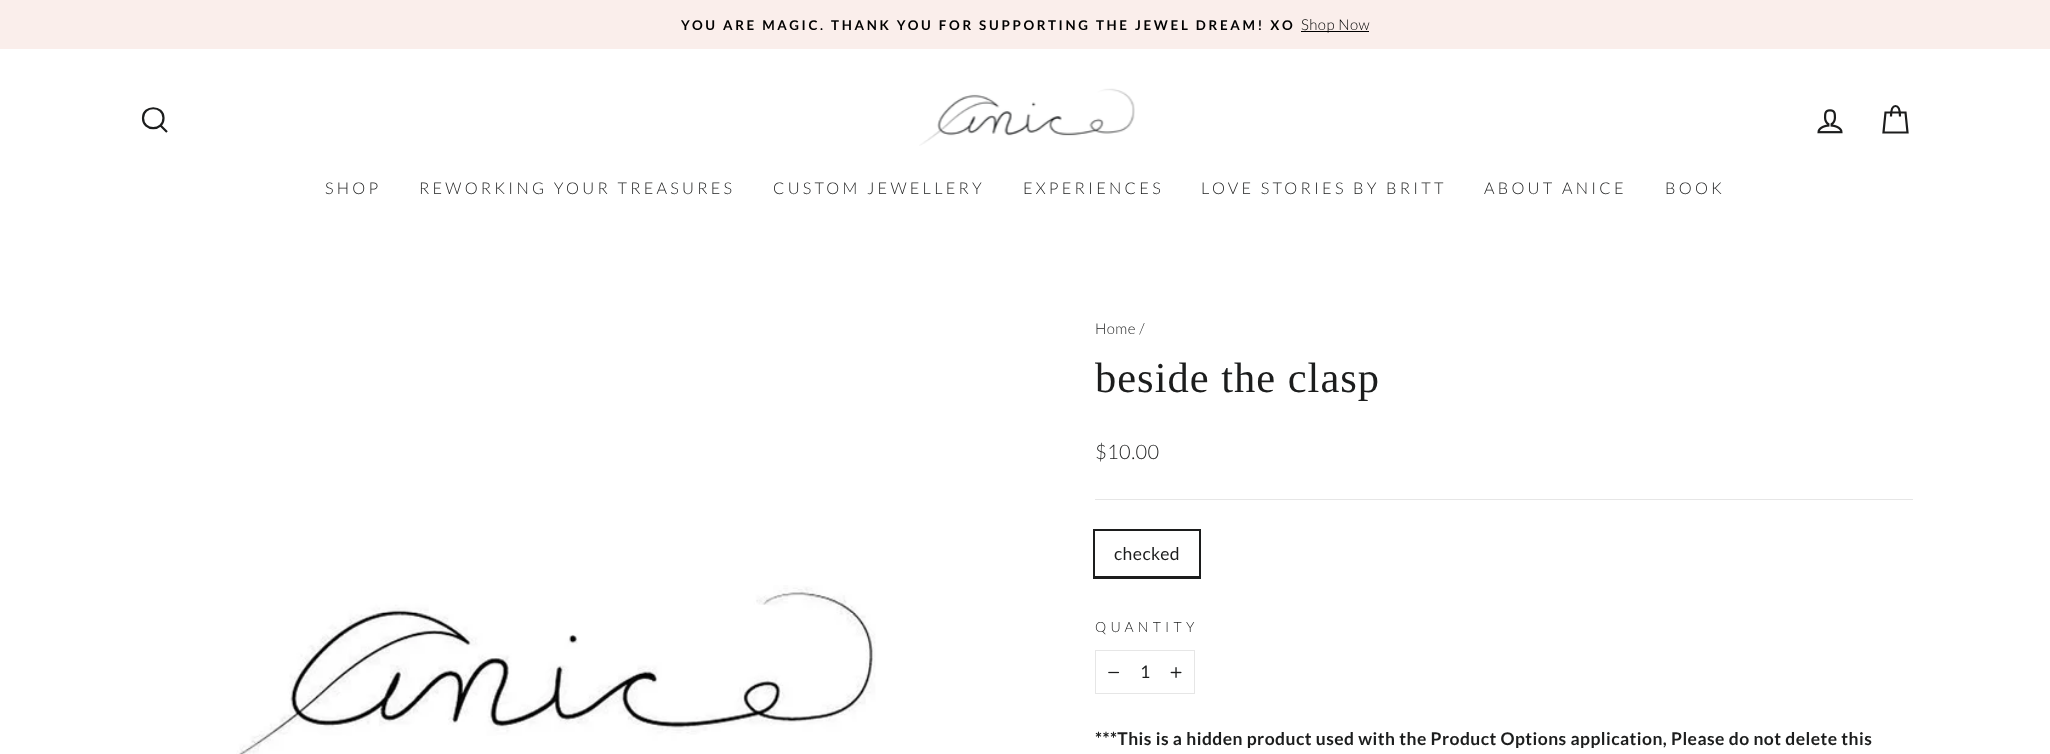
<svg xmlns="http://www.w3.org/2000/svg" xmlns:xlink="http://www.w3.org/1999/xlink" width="2050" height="754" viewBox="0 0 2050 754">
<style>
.cls-1{font:bold 13.4px Lato;letter-spacing:2.68px;fill:#000000}
.cls-2{font:300 15px Lato;letter-spacing:0.45px;fill:#000000}
.cls-3{font:300 16.25px Lato;letter-spacing:3.25px;fill:#1c1d1d}
.cls-4{font:300 15px Lato;letter-spacing:0.45px;fill:#1c1d1d}
.cls-5{font:42.5px Liberation Serif;letter-spacing:1px;fill:#1c1d1d}
.cls-6{font:300 20px Lato;letter-spacing:0.45px;fill:#1c1d1d}
.cls-7{font:17.5px Lato;letter-spacing:0.45px;fill:#1c1d1d}
.cls-8{font:300 14px Lato;letter-spacing:4.25px;fill:#1c1d1d}
.cls-9{font:bold 17.5px Lato;letter-spacing:0.45px;fill:#1c1d1d}
</style>
<rect width="100%" height="100%" fill="#ffffff"/>
<rect fill="#faeeeb" x="0" y="0" width="2050" height="49"/>
<rect fill="#000000" x="1301" y="31" width="68" height="1"/>
<path fill="none" stroke="#1c1d1d" stroke-width="2.2" d="M163.5 118C163.5 131.5 143 131.5 143 118C143 105 163.5 105 163.5 118ZM167 132L160.5 125.5"/>
<image xlink:href="image0.png" x="919" y="88" width="216" height="58"/>
<image xlink:href="image1.png" x="1817" y="109" width="26" height="25"/>
<path fill="none" stroke="#1c1d1d" stroke-width="2.2" d="M1891 116.5C1891 108 1893 106 1895.5 106C1898 106 1900 108 1900 116.5M1885.5 112.5H1905.5L1907.5 132.5H1883.5Z"/>
<image xlink:href="image2.png" x="236" y="585" width="640" height="169"/>
<rect fill="#e6e6e6" x="1095" y="499" width="818" height="1"/>
<rect fill="none" stroke="#1c1d1d" stroke-width="3" x="1094.5" y="530.5" width="105" height="47"/>
<rect fill="#ffffff" x="1095" y="531" width="104" height="45"/>
<rect fill="none" stroke="#e6e6e6" x="1095.5" y="650.5" width="99" height="43"/>
<image xlink:href="image3.png" x="1108" y="671" width="12" height="3"/>
<image xlink:href="image4.png" x="1170" y="667" width="12" height="11"/>
<text class="cls-1" x="681" y="30">YOU ARE MAGIC. THANK YOU FOR SUPPORTING THE JEWEL DREAM! XO</text>
<text class="cls-2" x="1301" y="30">Shop Now</text>
<text class="cls-3" x="325" y="194">SHOP</text>
<text class="cls-3" x="419" y="194">REWORKING YOUR TREASURES</text>
<text class="cls-3" x="773" y="194">CUSTOM JEWELLERY</text>
<text class="cls-3" x="1023" y="194">EXPERIENCES</text>
<text class="cls-3" x="1201" y="194">LOVE STORIES BY BRITT</text>
<text class="cls-3" x="1484" y="194">ABOUT ANICE</text>
<text class="cls-3" x="1665" y="194">BOOK</text>
<text class="cls-4" x="1095" y="334">Home /</text>
<text class="cls-5" x="1095" y="392">beside the clasp</text>
<text class="cls-6" x="1095" y="459">$10.00</text>
<text class="cls-7" x="1114" y="560">checked</text>
<text class="cls-8" x="1095" y="632">QUANTITY</text>
<text class="cls-7" x="1140" y="678">1</text>
<text class="cls-9" x="1095" y="745">***This is a hidden product used with the Product Options application, Please do not delete this</text>
</svg>
